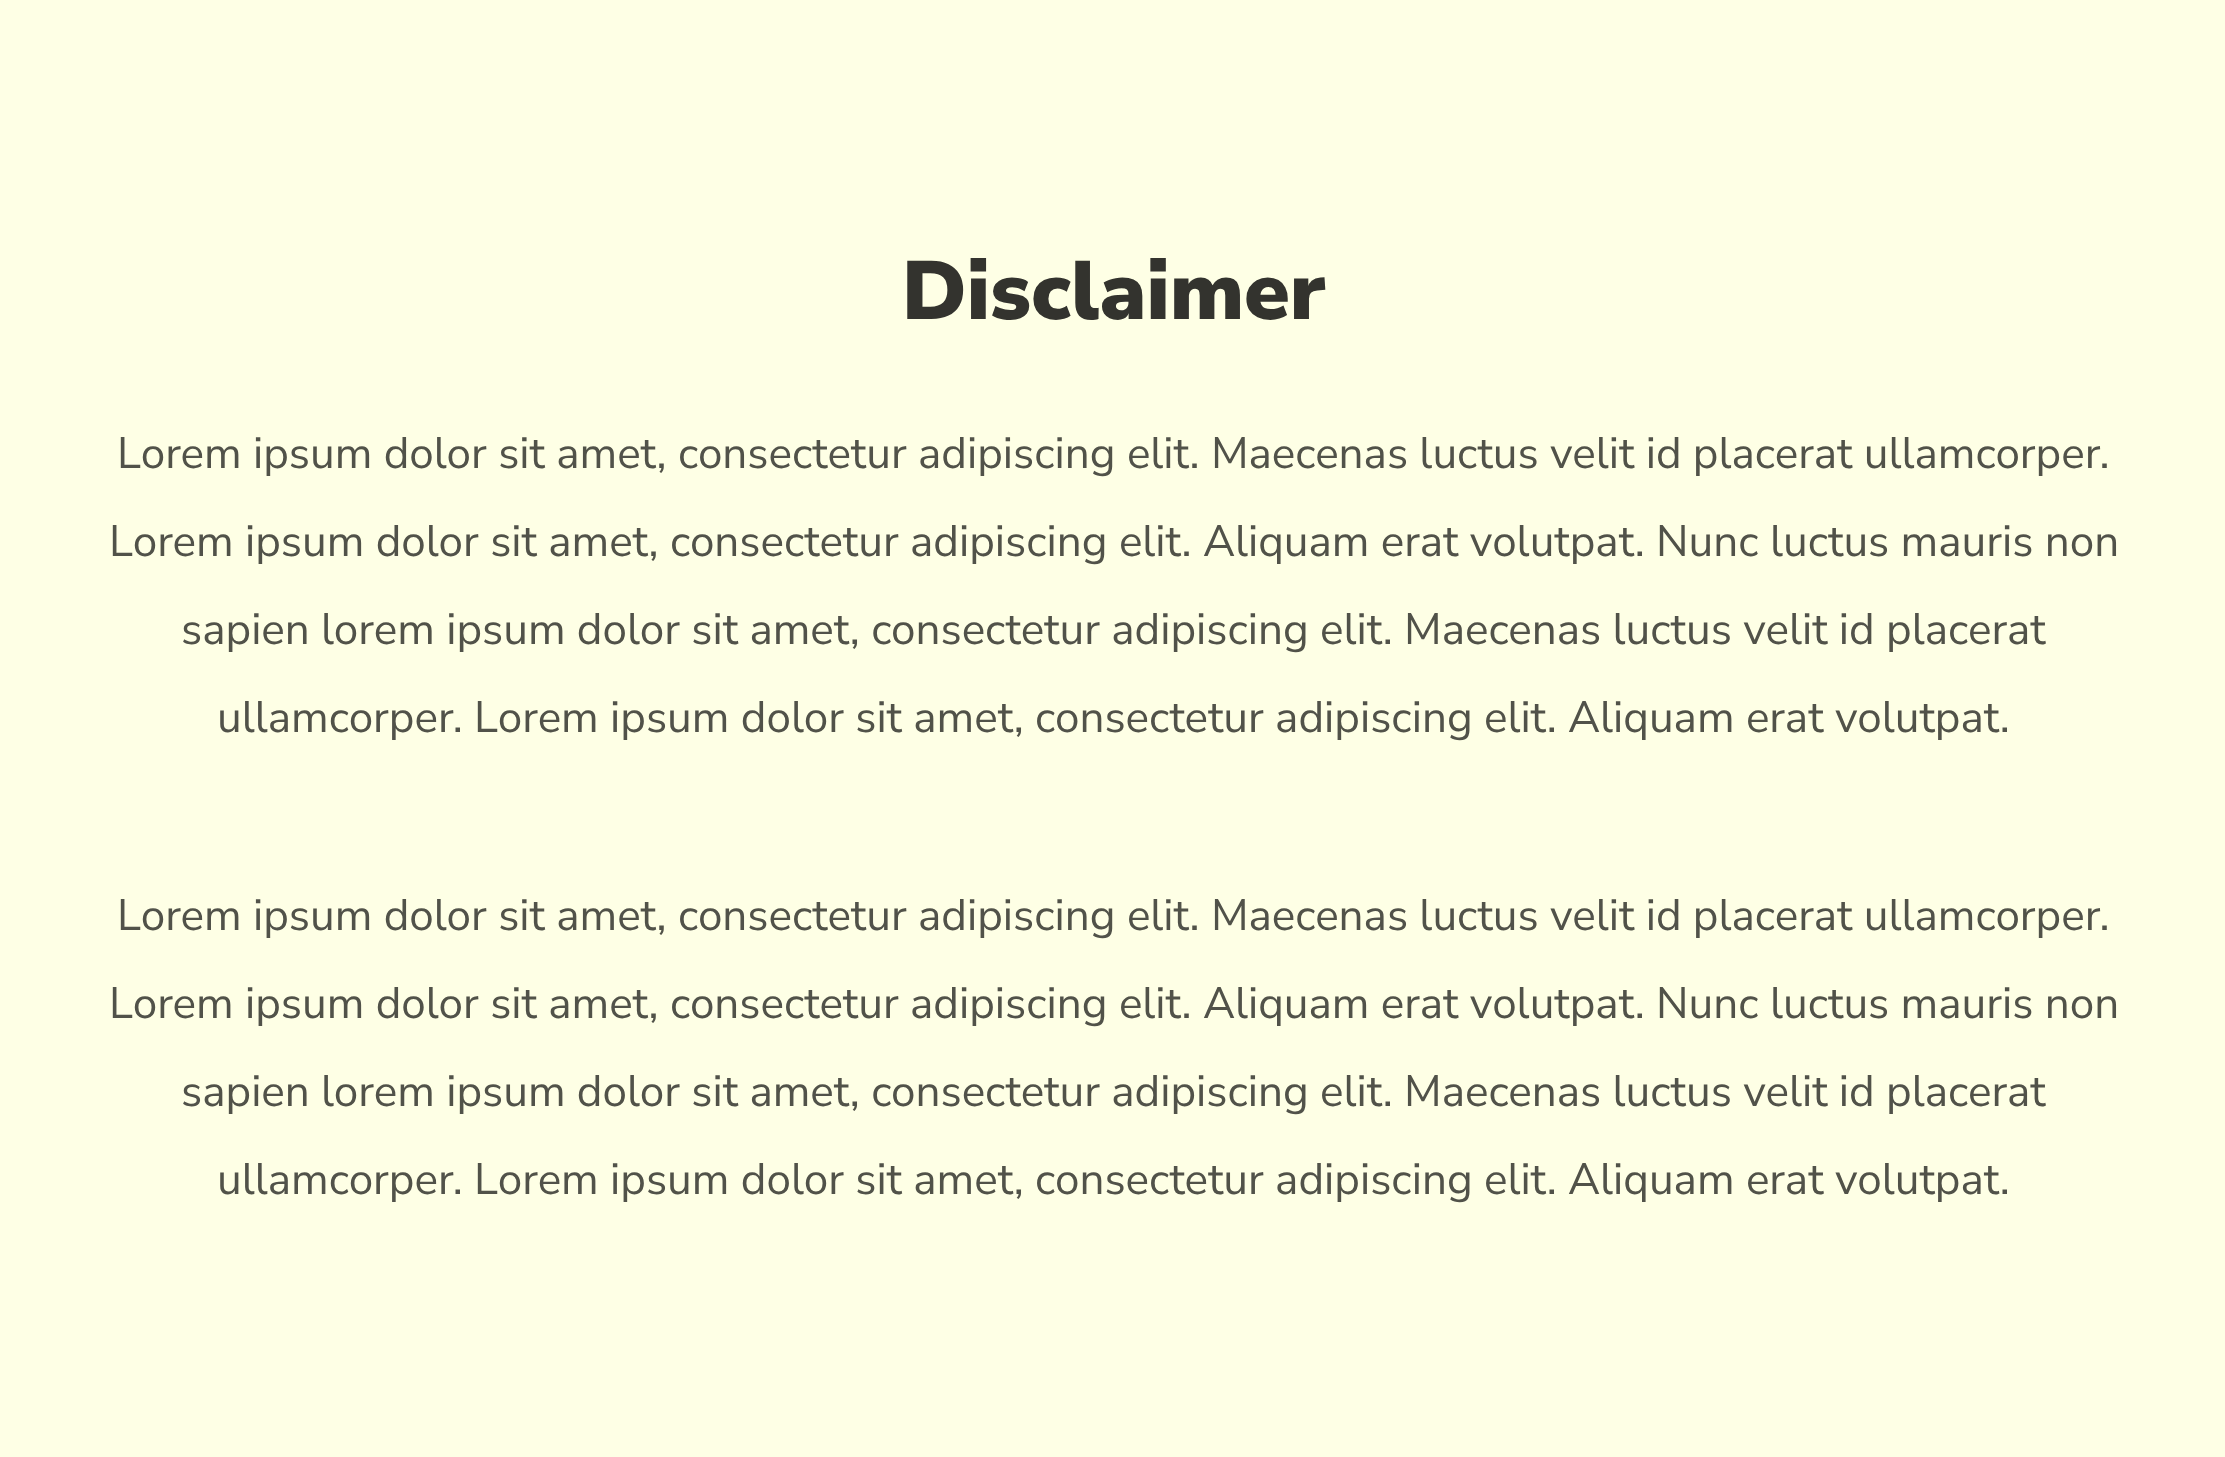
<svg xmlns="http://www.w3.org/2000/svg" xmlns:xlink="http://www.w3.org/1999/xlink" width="2225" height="1457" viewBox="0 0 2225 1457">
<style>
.cls-1{font:900 82.5px Nunito Sans;fill:#33332e}
.cls-2{font:44px Nunito Sans;fill:#515249}
</style>
<rect width="100%" height="100%" fill="#feffe5"/>
<text class="cls-1" x="902" y="319">Disclaimer</text>
<text class="cls-2" x="117" y="468">Lorem ipsum dolor sit amet, consectetur adipiscing elit. Maecenas luctus velit id placerat ullamcorper.</text>
<text class="cls-2" x="109" y="556">Lorem ipsum dolor sit amet, consectetur adipiscing elit. Aliquam erat volutpat. Nunc luctus mauris non</text>
<text class="cls-2" x="181" y="644">sapien lorem ipsum dolor sit amet, consectetur adipiscing elit. Maecenas luctus velit id placerat</text>
<text class="cls-2" x="217" y="732">ullamcorper. Lorem ipsum dolor sit amet, consectetur adipiscing elit. Aliquam erat volutpat.</text>
<text class="cls-2" x="117" y="930">Lorem ipsum dolor sit amet, consectetur adipiscing elit. Maecenas luctus velit id placerat ullamcorper.</text>
<text class="cls-2" x="109" y="1018">Lorem ipsum dolor sit amet, consectetur adipiscing elit. Aliquam erat volutpat. Nunc luctus mauris non</text>
<text class="cls-2" x="181" y="1106">sapien lorem ipsum dolor sit amet, consectetur adipiscing elit. Maecenas luctus velit id placerat</text>
<text class="cls-2" x="217" y="1194">ullamcorper. Lorem ipsum dolor sit amet, consectetur adipiscing elit. Aliquam erat volutpat.</text>
</svg>
